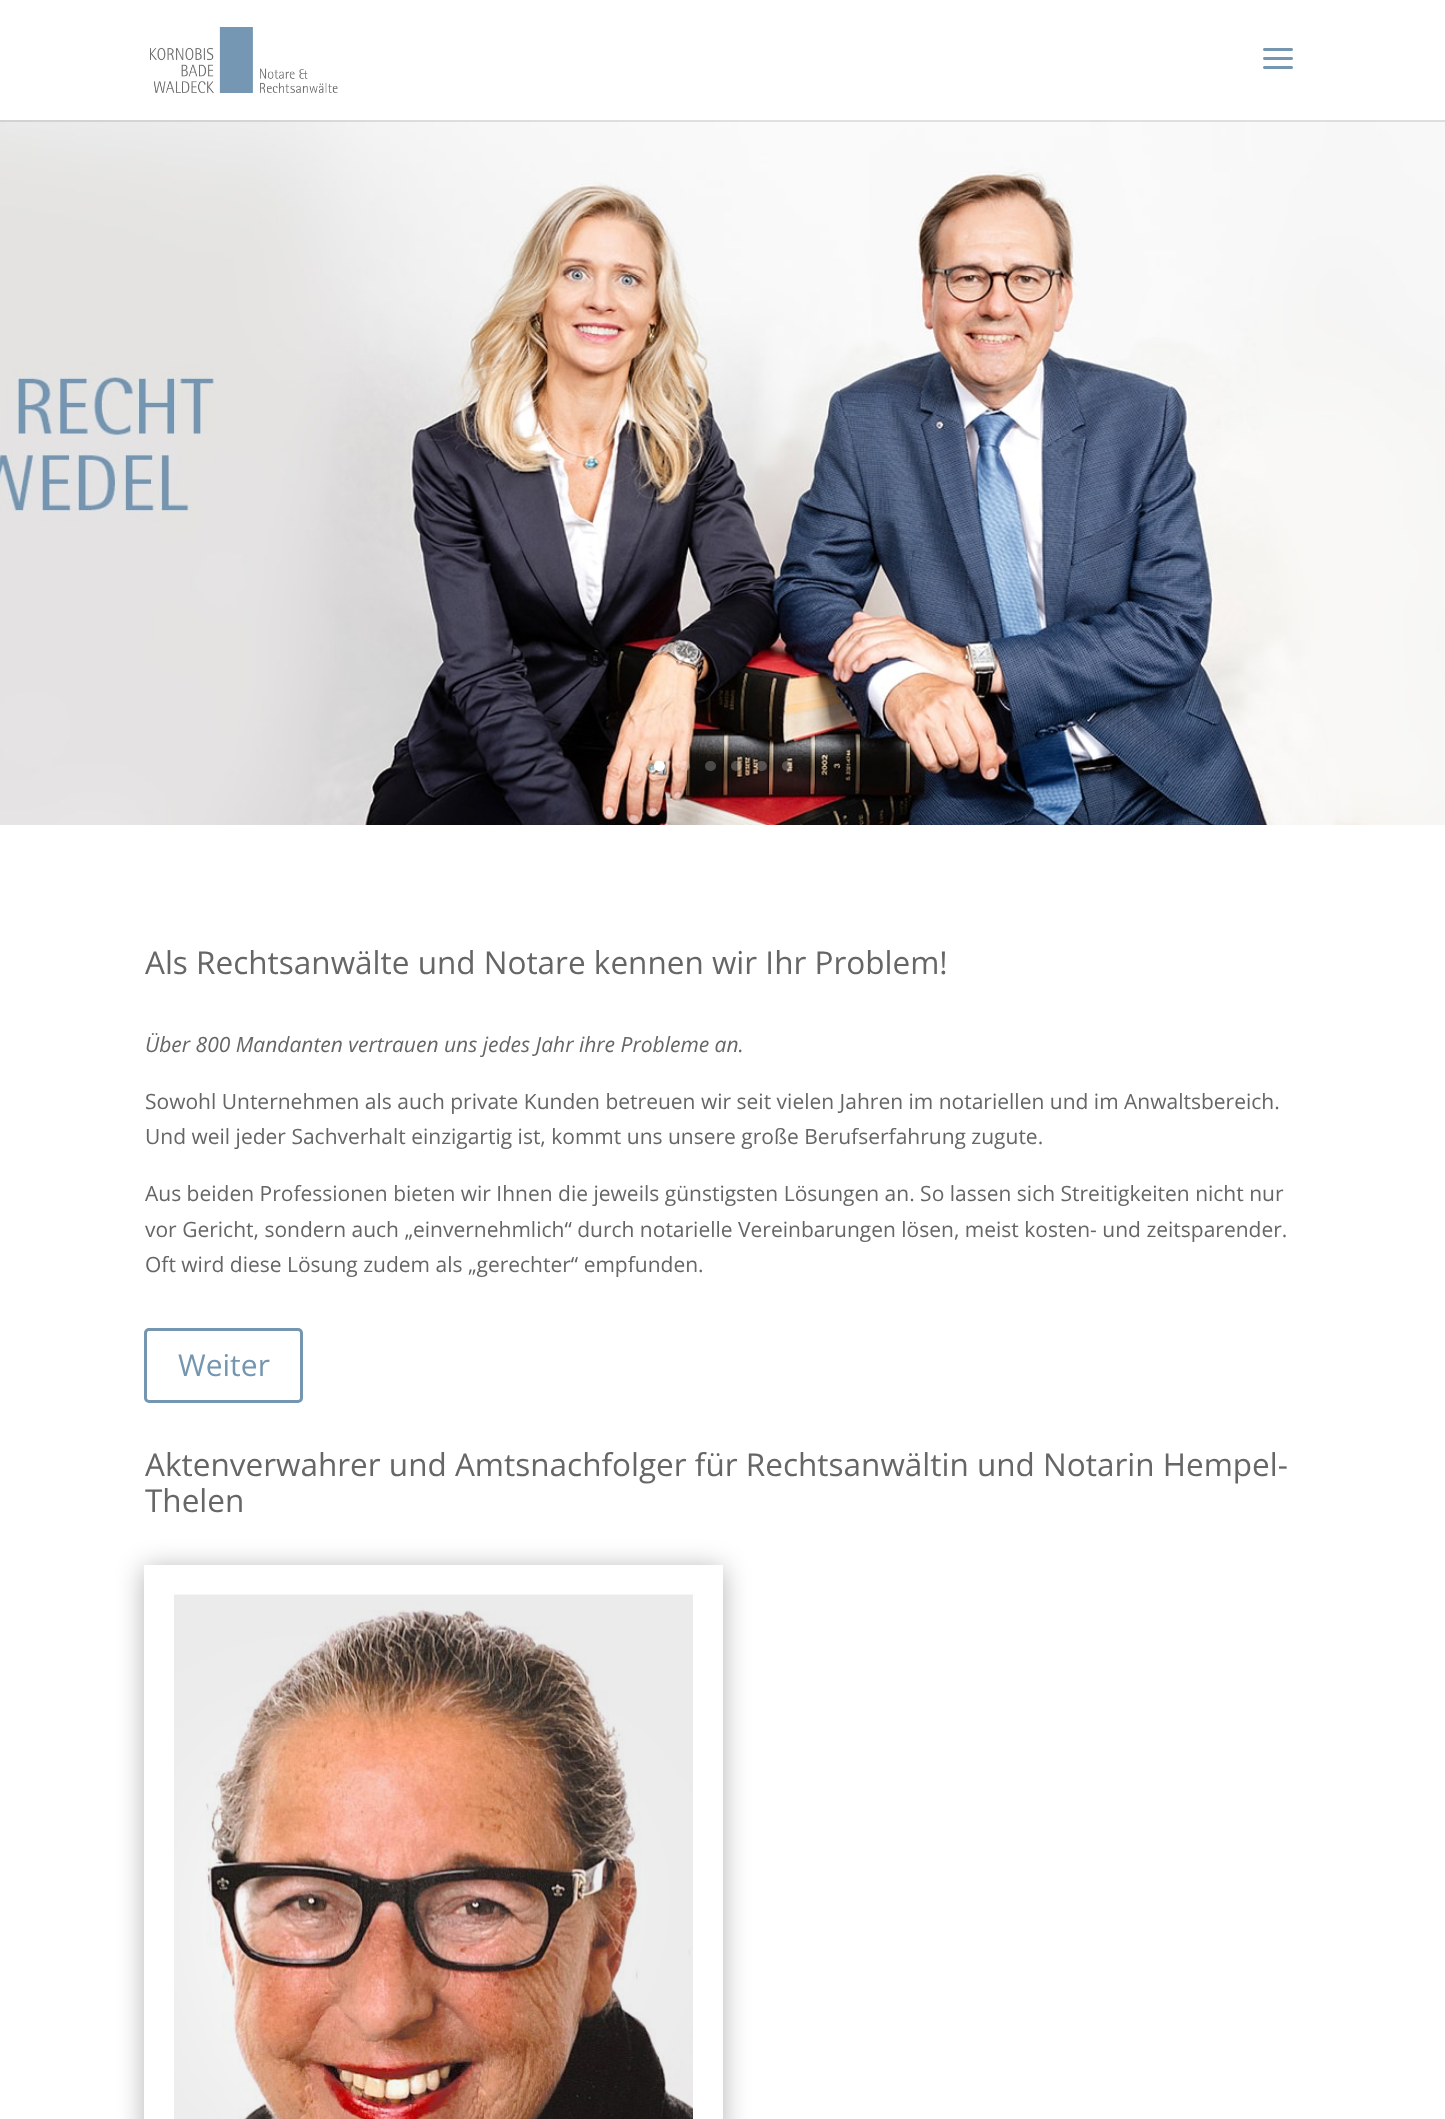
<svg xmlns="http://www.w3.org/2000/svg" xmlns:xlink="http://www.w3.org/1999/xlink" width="1445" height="2119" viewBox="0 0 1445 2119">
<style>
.cls-1{font:31.5px Open Sans;fill:#666666}
.cls-2{font:italic 21px Open Sans;fill:#666666}
.cls-3{font:21px Open Sans;fill:#666666}
.cls-4{font:30px Open Sans;fill:#7496b1}
</style>
<defs>
<clipPath id="clip1"><path d="M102 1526H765V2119H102ZM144 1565H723V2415H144Z" clip-rule="evenodd"/></clipPath>
</defs>
<rect width="100%" height="100%" fill="#ffffff"/>
<image xlink:href="image2.png" x="0" y="120" width="1445" height="705"/>
<rect fill="#000000" fill-opacity="0.1" x="0" y="120" width="1445" height="2"/>
<image xlink:href="image0.png" x="150" y="27" width="188" height="66"/>
<image xlink:href="image1.png" x="1263" y="48" width="30" height="21"/>
<rect fill="#ffffff" x="654" y="761" width="11" height="10" rx="5"/>
<circle fill="#ffffff" fill-opacity="0.25" cx="685" cy="766" r="5"/>
<rect fill="#ffffff" fill-opacity="0.25" x="705" y="761" width="11" height="10" rx="5"/>
<circle fill="#ffffff" fill-opacity="0.25" cx="736" cy="766" r="5"/>
<rect fill="#ffffff" fill-opacity="0.25" x="756" y="761" width="11" height="10" rx="5"/>
<circle fill="#ffffff" fill-opacity="0.25" cx="787" cy="766" r="5"/>
<rect fill="none" stroke="#7496b1" stroke-width="3" x="145.5" y="1329.5" width="156" height="72" rx="3.5"/>
<g clip-path="url(#clip1)">
<rect fill="#000000" fill-opacity="0.3" filter="blur(13.5px)" x="144" y="1568" width="579" height="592"/>
</g>
<image xlink:href="image3.png" x="174" y="1594" width="519" height="525"/>
<text class="cls-1" x="145" y="974">Als Rechtsanwälte und Notare kennen wir Ihr Problem!</text>
<text class="cls-2" x="145" y="1052">Über 800 Mandanten vertrauen uns jedes Jahr ihre Probleme an.</text>
<text class="cls-3"><tspan x="145" y="1109">Sowohl Unternehmen als auch private Kunden betreuen wir seit vielen Jahren im notariellen und im Anwaltsbereich.</tspan><tspan x="145" y="1144">Und weil jeder Sachverhalt einzigartig ist, kommt uns unsere große Berufserfahrung zugute.</tspan></text>
<text class="cls-3"><tspan x="145" y="1201">Aus beiden Professionen bieten wir Ihnen die jeweils günstigsten Lösungen an. So lassen sich Streitigkeiten nicht nur</tspan><tspan x="145" y="1237">vor Gericht, sondern auch „einvernehmlich“ durch notarielle Vereinbarungen lösen, meist kosten- und zeitsparender.</tspan><tspan x="145" y="1272">Oft wird diese Lösung zudem als „gerechter“ empfunden.</tspan></text>
<text class="cls-4" x="178" y="1376">Weiter</text>
<text class="cls-1"><tspan x="145" y="1476">Aktenverwahrer und Amtsnachfolger für Rechtsanwältin und Notarin Hempel-</tspan><tspan x="145" y="1512">Thelen</tspan></text>
</svg>
